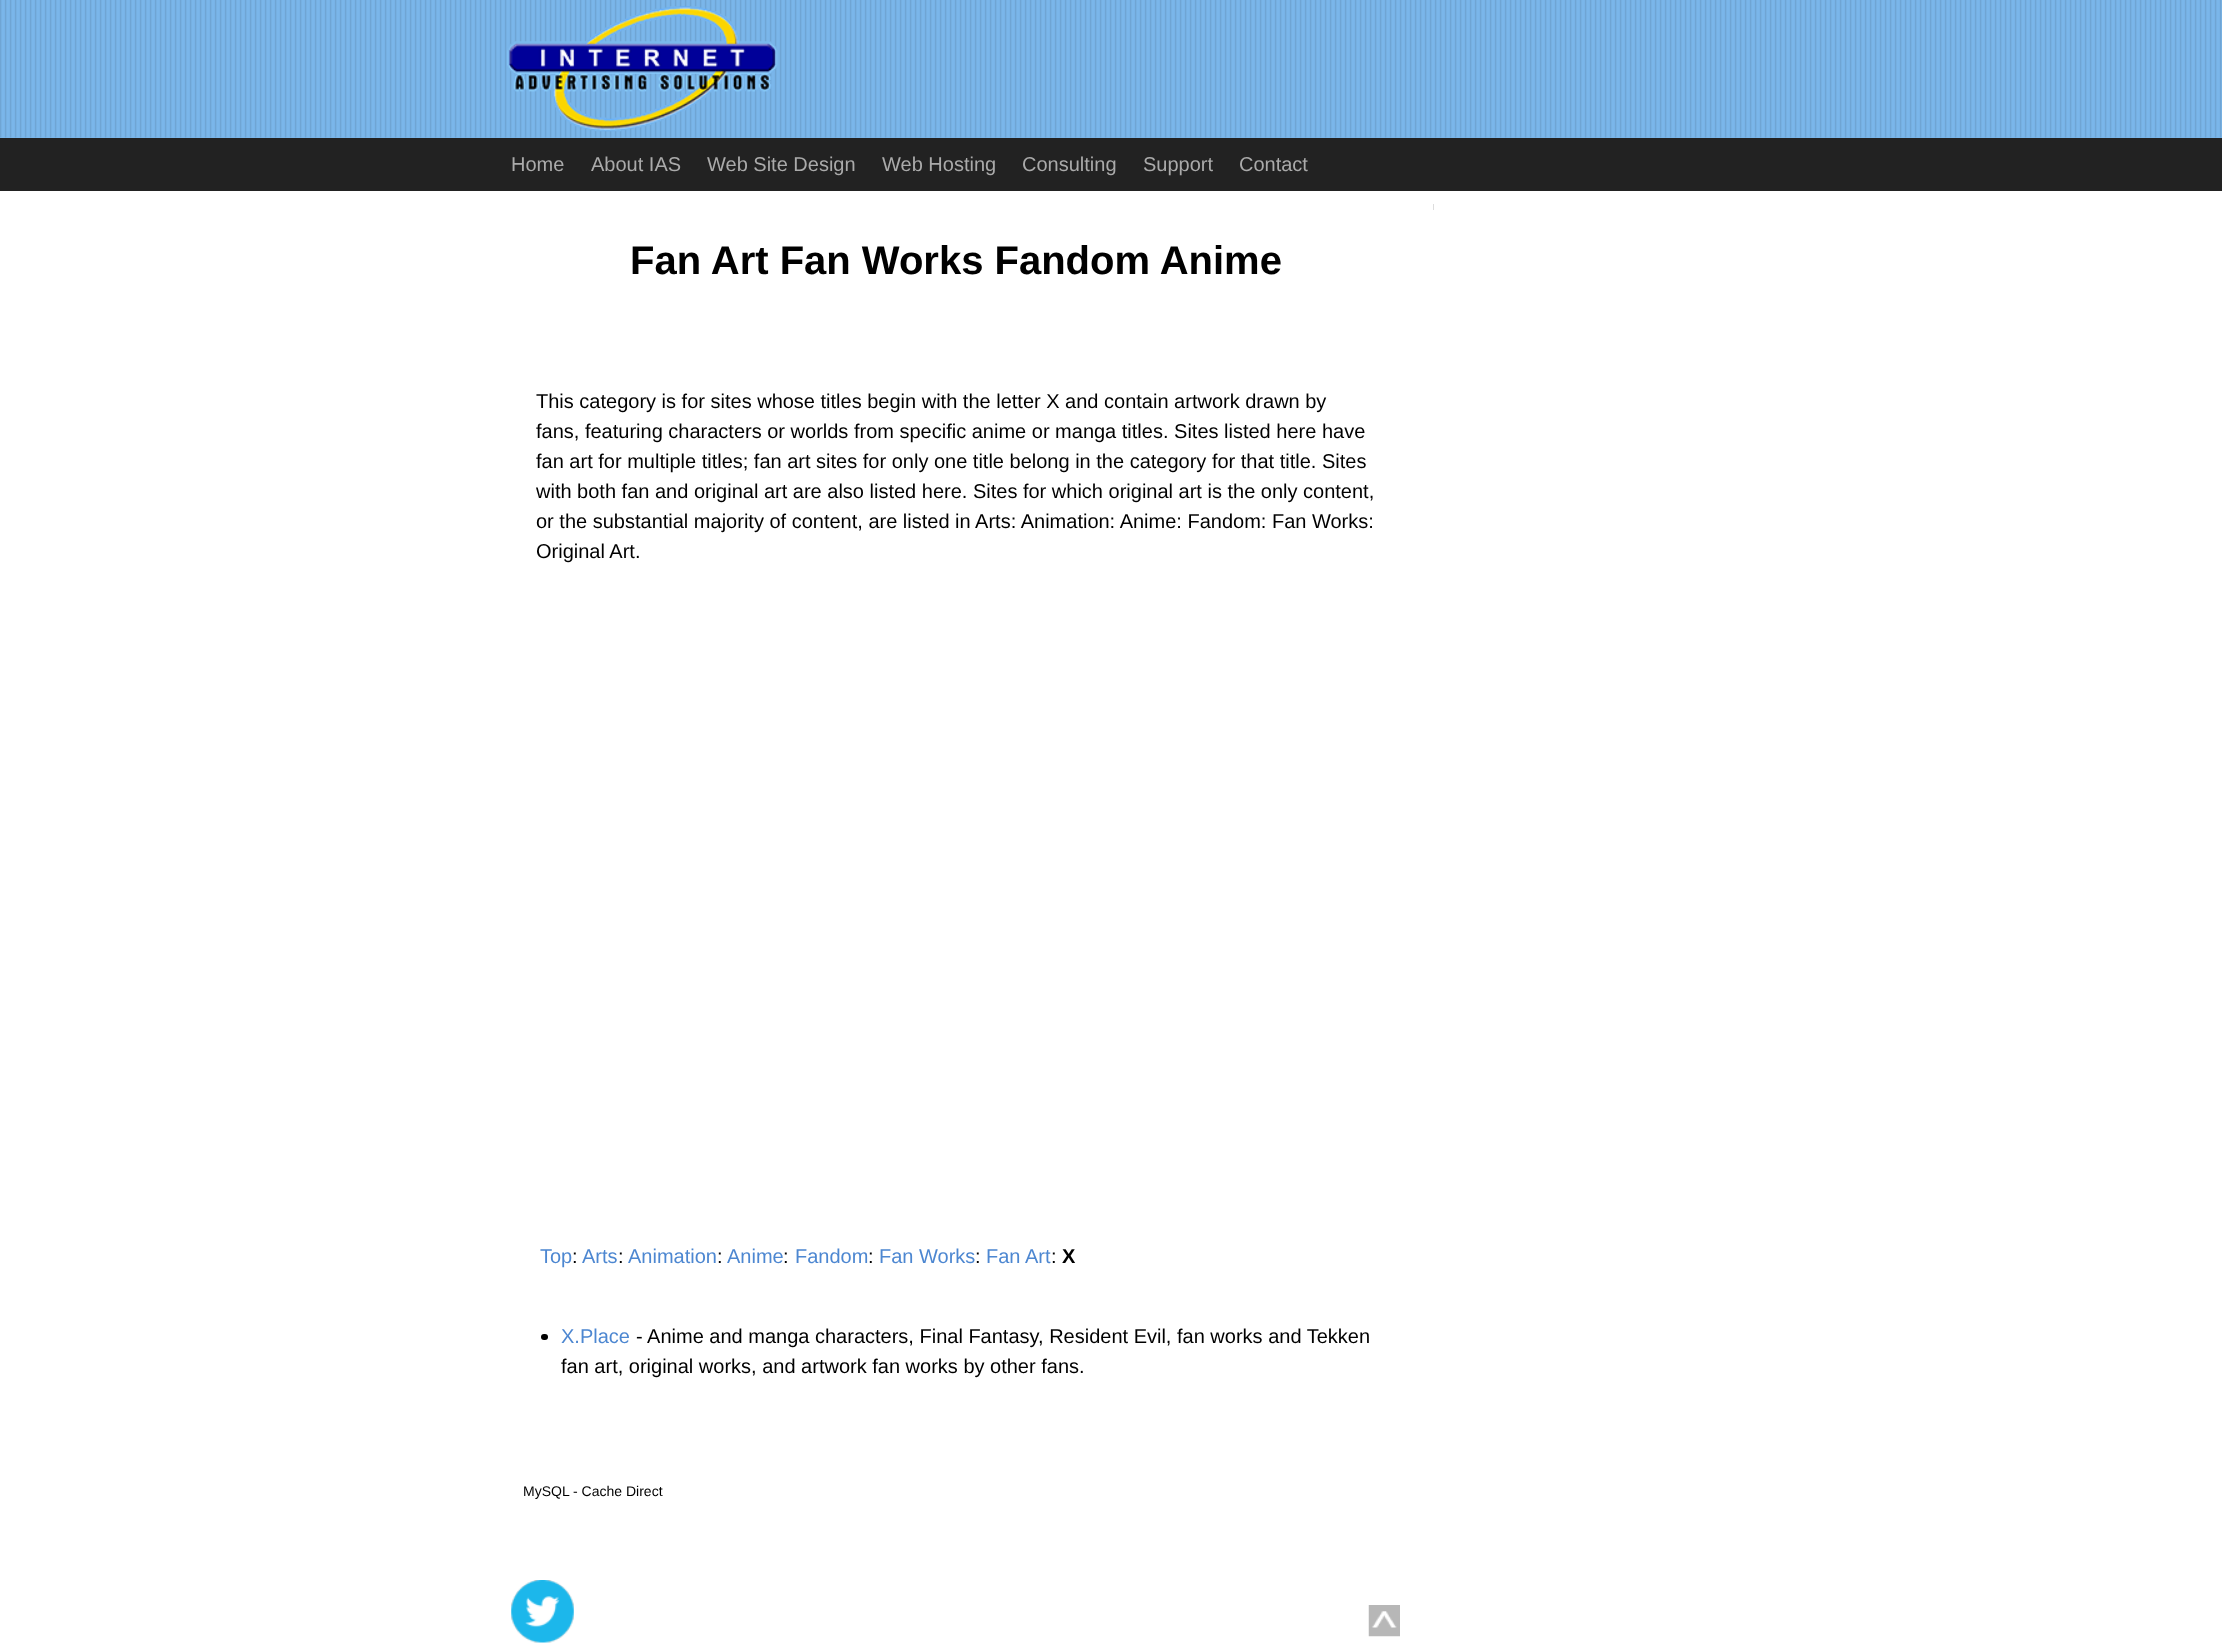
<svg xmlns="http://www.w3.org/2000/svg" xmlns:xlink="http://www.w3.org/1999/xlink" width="2222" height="1652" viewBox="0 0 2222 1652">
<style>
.cls-1{font:20px Liberation Sans;fill:#aaaaaa}
.cls-2{font:bold 40px Liberation Sans;fill:#000000}
.cls-3{font:20px Liberation Sans;fill:#000000}
.cls-4{font:20px Liberation Sans;fill:#4d87d1}
.cls-5{font:bold 20px Liberation Sans;fill:#000000}
.cls-6{font:14px Liberation Sans;fill:#000000}
</style>
<rect width="100%" height="100%" fill="#ffffff"/>
<rect fill="#7ab6ea" x="0" y="0" width="2222" height="138"/>
<image xlink:href="image0.png" x="0" y="0" width="2222" height="138"/>
<image xlink:href="image1.png" x="507" y="6" width="271" height="126"/>
<rect fill="#222222" x="0" y="138" width="2222" height="53"/>
<rect fill="#dddddd" x="1433" y="204" width="1" height="6"/>
<rect fill="#000000" x="541" y="1334" width="7" height="6" rx="3"/>
<image xlink:href="image2.png" x="511" y="1580" width="63" height="63"/>
<image xlink:href="image3.png" x="1368" y="1605" width="32" height="32"/>
<text class="cls-1" x="511" y="171">Home</text>
<text class="cls-1" x="591" y="171">About IAS</text>
<text class="cls-1" x="707" y="171">Web Site Design</text>
<text class="cls-1" x="882" y="171">Web Hosting</text>
<text class="cls-1" x="1022" y="171">Consulting</text>
<text class="cls-1" x="1143" y="171">Support</text>
<text class="cls-1" x="1239" y="171">Contact</text>
<text class="cls-2" x="630" y="274">Fan Art Fan Works Fandom Anime</text>
<text class="cls-3"><tspan x="536" y="408">This category is for sites whose titles begin with the letter X and contain artwork drawn by</tspan><tspan x="536" y="438">fans, featuring characters or worlds from specific anime or manga titles. Sites listed here have</tspan><tspan x="536" y="468">fan art for multiple titles; fan art sites for only one title belong in the category for that title. Sites</tspan><tspan x="536" y="498">with both fan and original art are also listed here. Sites for which original art is the only content,</tspan><tspan x="536" y="528">or the substantial majority of content, are listed in Arts: Animation: Anime: Fandom: Fan Works:</tspan><tspan x="536" y="558">Original Art.</tspan></text>
<text class="cls-4" x="540" y="1263">Top</text>
<text class="cls-3" x="572" y="1263">:</text>
<text class="cls-4" x="582" y="1263">Arts</text>
<text class="cls-3" x="618" y="1263">:</text>
<text class="cls-4" x="628" y="1263">Animation</text>
<text class="cls-3" x="717" y="1263">:</text>
<text class="cls-4" x="727" y="1263">Anime</text>
<text class="cls-3" x="783" y="1263">:</text>
<text class="cls-4" x="795" y="1263">Fandom</text>
<text class="cls-3" x="868" y="1263">:</text>
<text class="cls-4" x="879" y="1263">Fan Works</text>
<text class="cls-3" x="975" y="1263">:</text>
<text class="cls-4" x="986" y="1263">Fan Art</text>
<text class="cls-3" x="1051" y="1263">:</text>
<text class="cls-5" x="1062" y="1263">X</text>
<text class="cls-4" x="561" y="1343">X.Place</text>
<text class="cls-3" x="636" y="1343">- Anime and manga characters, Final Fantasy, Resident Evil, fan works and Tekken</text>
<text class="cls-3" x="561" y="1373">fan art, original works, and artwork fan works by other fans.</text>
<text class="cls-6" x="523" y="1496">MySQL - Cache Direct</text>
</svg>
